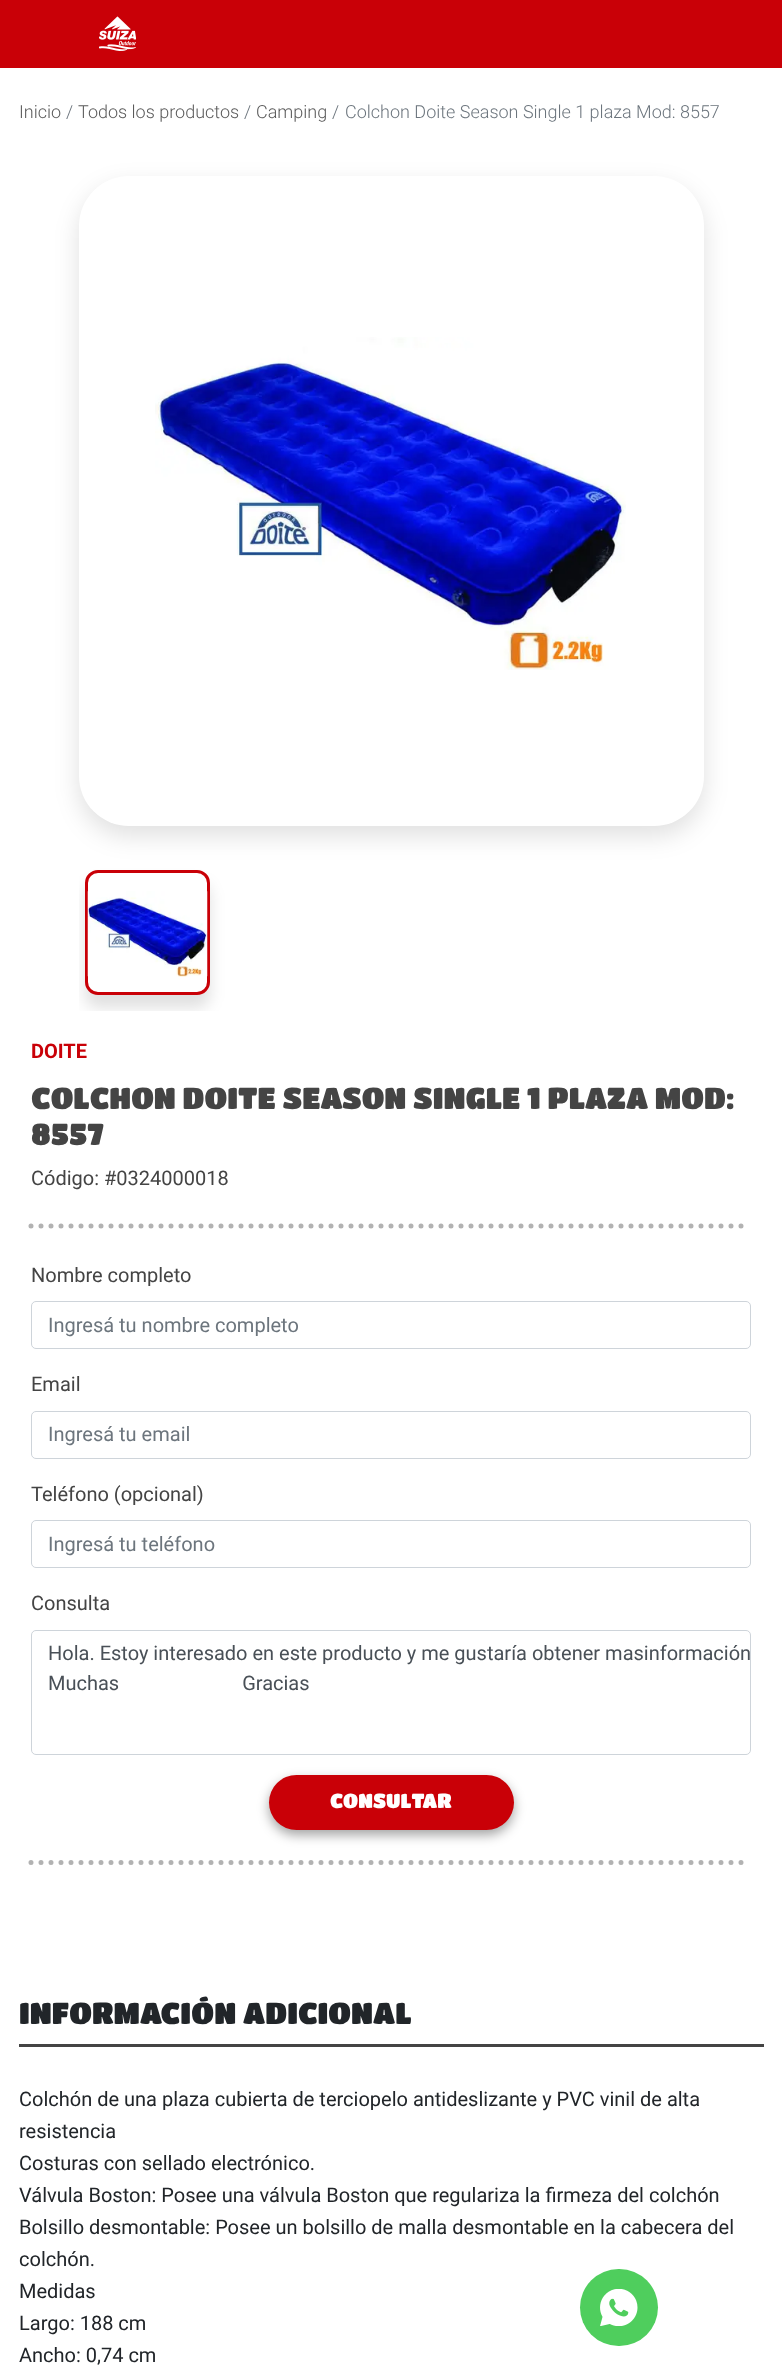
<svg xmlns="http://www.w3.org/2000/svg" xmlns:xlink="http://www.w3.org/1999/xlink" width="782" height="2370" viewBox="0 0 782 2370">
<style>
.cls-1{font:300 18px Roboto;fill:#5a5a5a}
.cls-2{font:300 18px Roboto;fill:#6c757d}
.cls-3{font:bold 20px Roboto;fill:#c90007}
.cls-4{font:30px Titan One;fill:#444444}
.cls-5{font:20px Roboto;fill:#444444}
.cls-6{font:20px Roboto;fill:#6c757d}
.cls-7{font:20px Roboto;fill:#495057}
.cls-8{font:20px Titan One;fill:#ffffff}
.cls-9{font:30px Titan One;fill:#212529}
.cls-10{font:20px Roboto;fill:#212529}
</style>
<defs>
<clipPath id="clip1"><rect x="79" y="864" width="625" height="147"/></clipPath>
</defs>
<rect width="100%" height="100%" fill="#ffffff"/>
<rect fill="#c90007" x="0" y="0" width="782" height="68"/>
<image xlink:href="image0.png" x="99" y="16" width="37" height="35"/>
<g clip-path="url(#clip1)">
<rect fill="#000000" fill-opacity="0.12" filter="blur(7.5px)" x="85" y="883" width="125" height="125" rx="13"/>
</g>
<rect fill="#ffffff" stroke="#c90007" stroke-width="3" x="86.5" y="871.5" width="122" height="122" rx="11.5"/>
<rect fill="#000000" fill-opacity="0.12" filter="blur(12.5px)" x="79" y="186" width="625" height="650" rx="50"/>
<rect fill="#ffffff" x="79" y="176" width="625" height="650" rx="50"/>
<image xlink:href="image1.png" x="155" y="337" width="471" height="333"/>
<image xlink:href="image2.png" x="87" y="891" width="121" height="86"/>
<path fill="none" stroke="#b2b2b2" stroke-width="5" stroke-linecap="round" stroke-dasharray="0 10" d="M31 1226H751"/>
<rect fill="none" stroke="#ced4da" x="31.5" y="1301.5" width="719" height="47" rx="4.5"/>
<rect fill="none" stroke="#ced4da" x="31.5" y="1411.5" width="719" height="47" rx="4.5"/>
<rect fill="none" stroke="#ced4da" x="31.5" y="1520.5" width="719" height="47" rx="4.5"/>
<rect fill="none" stroke="#ced4da" x="31.5" y="1630.5" width="719" height="124" rx="4.5"/>
<rect fill="#000000" fill-opacity="0.36" filter="blur(6px)" x="269" y="1780" width="245" height="55" rx="27.5"/>
<rect fill="#c90007" x="269" y="1775" width="245" height="55" rx="27.5"/>
<path fill="none" stroke="#b2b2b2" stroke-width="5" stroke-linecap="round" stroke-dasharray="0 10" d="M31 1862.5H751"/>
<rect fill="#444444" x="19" y="2044" width="745" height="3"/>
<rect fill="#4fce5d" x="580" y="2269" width="78" height="77" rx="38.5"/>
<image xlink:href="image3.png" x="600" y="2289" width="38" height="37"/>
<text class="cls-1" x="19" y="118">Inicio</text>
<text class="cls-2" x="66" y="118">/</text>
<text class="cls-1" x="78" y="118">Todos los productos</text>
<text class="cls-2" x="244" y="118">/</text>
<text class="cls-1" x="256" y="118">Camping</text>
<text class="cls-2" x="332" y="118">/</text>
<text class="cls-2" x="345" y="118">Colchon Doite Season Single 1 plaza Mod: 8557</text>
<text class="cls-3" x="31" y="1058">DOITE</text>
<text class="cls-4"><tspan x="31" y="1109">COLCHON DOITE SEASON SINGLE 1 PLAZA MOD:</tspan><tspan x="31" y="1145">8557</tspan></text>
<text class="cls-5" x="31" y="1185">Código: #0324000018</text>
<text class="cls-5" x="31" y="1282">Nombre completo</text>
<text class="cls-6" x="48" y="1332">Ingresá tu nombre completo</text>
<text class="cls-5" x="31" y="1391">Email</text>
<text class="cls-6" x="48" y="1441">Ingresá tu email</text>
<text class="cls-5" x="31" y="1501">Teléfono (opcional)</text>
<text class="cls-6" x="48" y="1551">Ingresá tu teléfono</text>
<text class="cls-5" x="31" y="1610">Consulta</text>
<text class="cls-7"><tspan x="48" y="1660">Hola. Estoy interesado en este producto y me gustaría obtener masinformación</tspan><tspan x="48" y="1690" word-spacing="118">Muchas Gracias</tspan></text>
<text class="cls-8" x="330" y="1808">CONSULTAR</text>
<text class="cls-9" x="19" y="2024">INFORMACIÓN ADICIONAL</text>
<text class="cls-10"><tspan x="19" y="2106">Colchón de una plaza cubierta de terciopelo antideslizante y PVC vinil de alta</tspan><tspan x="19" y="2138">resistencia</tspan><tspan x="19" y="2170">Costuras con sellado electrónico.</tspan><tspan x="19" y="2202">Válvula Boston: Posee una válvula Boston que regulariza la firmeza del colchón</tspan><tspan x="19" y="2234">Bolsillo desmontable: Posee un bolsillo de malla desmontable en la cabecera del</tspan><tspan x="19" y="2266">colchón.</tspan><tspan x="19" y="2298">Medidas</tspan><tspan x="19" y="2330">Largo: 188 cm</tspan><tspan x="19" y="2362">Ancho: 0,74 cm</tspan></text>
</svg>
